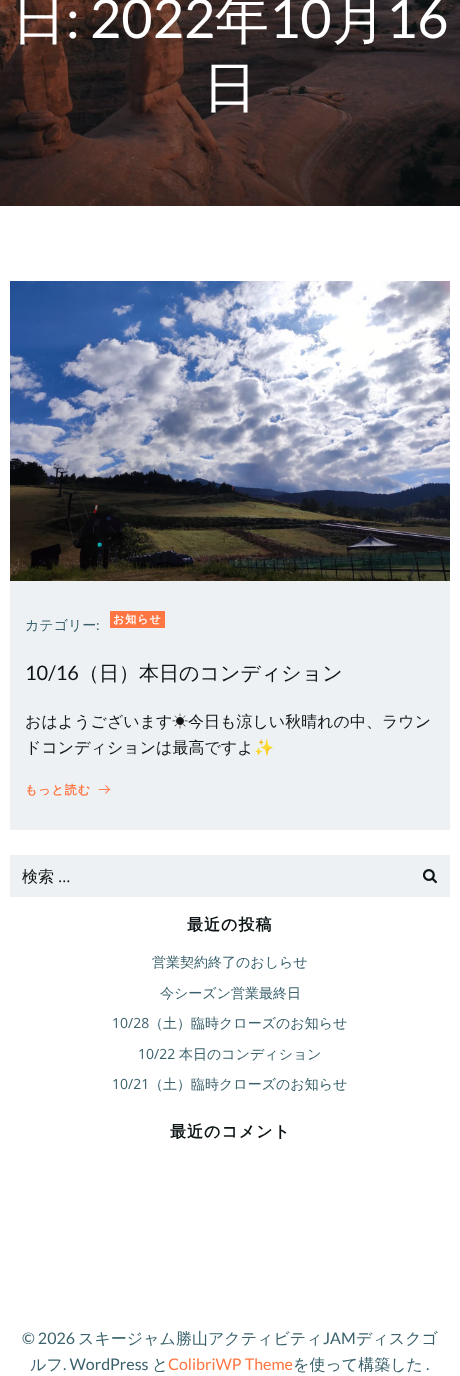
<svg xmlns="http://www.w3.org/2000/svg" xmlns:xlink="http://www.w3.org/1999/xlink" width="460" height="1376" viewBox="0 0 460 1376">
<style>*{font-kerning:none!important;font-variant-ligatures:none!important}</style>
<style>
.cls-1{font:500 54px WenQuanYi Zen Hei;fill:#ffffff}
.cls-2{font:54px Lato;fill:#ffffff}
.cls-3{font:500 14px WenQuanYi Zen Hei;fill:#3a616b}
.cls-4{font:14px Lato;fill:#3a616b}
.cls-5{font:bold 11px WenQuanYi Zen Hei;letter-spacing:1px;fill:#ffffff}
.cls-6{font:20px Lato;fill:#0c1416}
.cls-7{font:500 20px WenQuanYi Zen Hei;fill:#0c1416}
.cls-8{font:500 16px WenQuanYi Zen Hei;fill:#131516}
.cls-9{font:16px IPAPGothic;fill:#131516}
.cls-10{font:16px Noto Color Emoji;fill:#131516}
.cls-11{font:bold 12px WenQuanYi Zen Hei;letter-spacing:1px;fill:#ff7643}
.cls-12{font:16px Open Sans;fill:#131516}
.cls-13{font:bold 16px WenQuanYi Zen Hei;letter-spacing:1px;fill:#0c1416}
.cls-14{font:14px Open Sans;fill:#3a616b}
.cls-15{font:16px Lato;fill:#3a616b}
.cls-16{font:500 16px WenQuanYi Zen Hei;fill:#3a616b}
.cls-17{font:16px Lato;fill:#ff7643}
</style>
<rect width="100%" height="100%" fill="#ffffff"/>
<image xlink:href="image0.png" x="0" y="0" width="460" height="206"/>
<rect fill="#edf1f3" x="10" y="581" width="440" height="249"/>
<image xlink:href="image1.png" x="10" y="281" width="440" height="300"/>
<rect fill="#eeeeee" x="25" y="814" width="410" height="1"/>
<rect fill="#ff7643" x="110" y="611" width="55" height="17"/>
<image xlink:href="image2.png" x="98" y="785" width="12" height="9"/>
<rect fill="#edf1f3" x="10" y="855" width="440" height="42"/>
<image xlink:href="image3.png" x="423" y="869" width="14" height="15"/>
<text class="cls-1" x="12" y="38">日</text>
<text class="cls-2" x="66" y="38">: 2022</text>
<text class="cls-1" x="215" y="38">年</text>
<text class="cls-2" x="269" y="38">10</text>
<text class="cls-1" x="332" y="38">月</text>
<text class="cls-2" x="386" y="38">16</text>
<text class="cls-1" x="203" y="106">日</text>
<text class="cls-3" x="25" y="630">カテゴリー</text>
<text class="cls-4" x="96" y="630">:</text>
<text class="cls-5" x="113" y="623">お知らせ</text>
<text class="cls-6" x="25" y="680">10/16</text>
<text class="cls-7" x="79" y="680">（日）本日のコンディション</text>
<text class="cls-8" x="25" y="727">おはようございます</text>
<text class="cls-9" x="172" y="727">☀</text>
<text class="cls-8" x="188" y="727">今日も涼しい秋晴れの中、ラウン</text>
<text class="cls-8" x="25" y="753">ドコンディションは最高ですよ</text>
<text class="cls-10" x="254" y="753">✨</text>
<text class="cls-11" x="25" y="794">もっと読む</text>
<text class="cls-8" x="22" y="882">検索</text>
<text class="cls-12" x="58" y="882">…</text>
<text class="cls-13" x="187" y="930">最近の投稿</text>
<text class="cls-3" x="152" y="967">営業契約終了のおしらせ</text>
<text class="cls-3" x="160" y="998">今シーズン営業最終日</text>
<text class="cls-14" x="112" y="1028">10/28</text>
<text class="cls-3" x="149" y="1028">（土）臨時クローズのお知らせ</text>
<text class="cls-14" x="138" y="1059">10/22</text>
<text class="cls-3" x="179" y="1059">本日のコンディション</text>
<text class="cls-14" x="112" y="1089">10/21</text>
<text class="cls-3" x="149" y="1089">（土）臨時クローズのお知らせ</text>
<text class="cls-13" x="170" y="1137">最近のコメント</text>
<text class="cls-15" x="22" y="1344">© 2026</text>
<text class="cls-16" x="78" y="1344">スキージャム勝山アクティビティ</text>
<text class="cls-15" x="323" y="1344">JAM</text>
<text class="cls-16" x="356" y="1344">ディスクゴ</text>
<text class="cls-16" x="30" y="1370">ルフ</text>
<text class="cls-15" x="63" y="1370">. WordPress</text>
<text class="cls-16" x="152" y="1370">と</text>
<text class="cls-17" x="168" y="1370">ColibriWP Theme</text>
<text class="cls-16" x="293" y="1370">を使って構築した</text>
<text class="cls-15" x="426" y="1370">.</text>
</svg>
